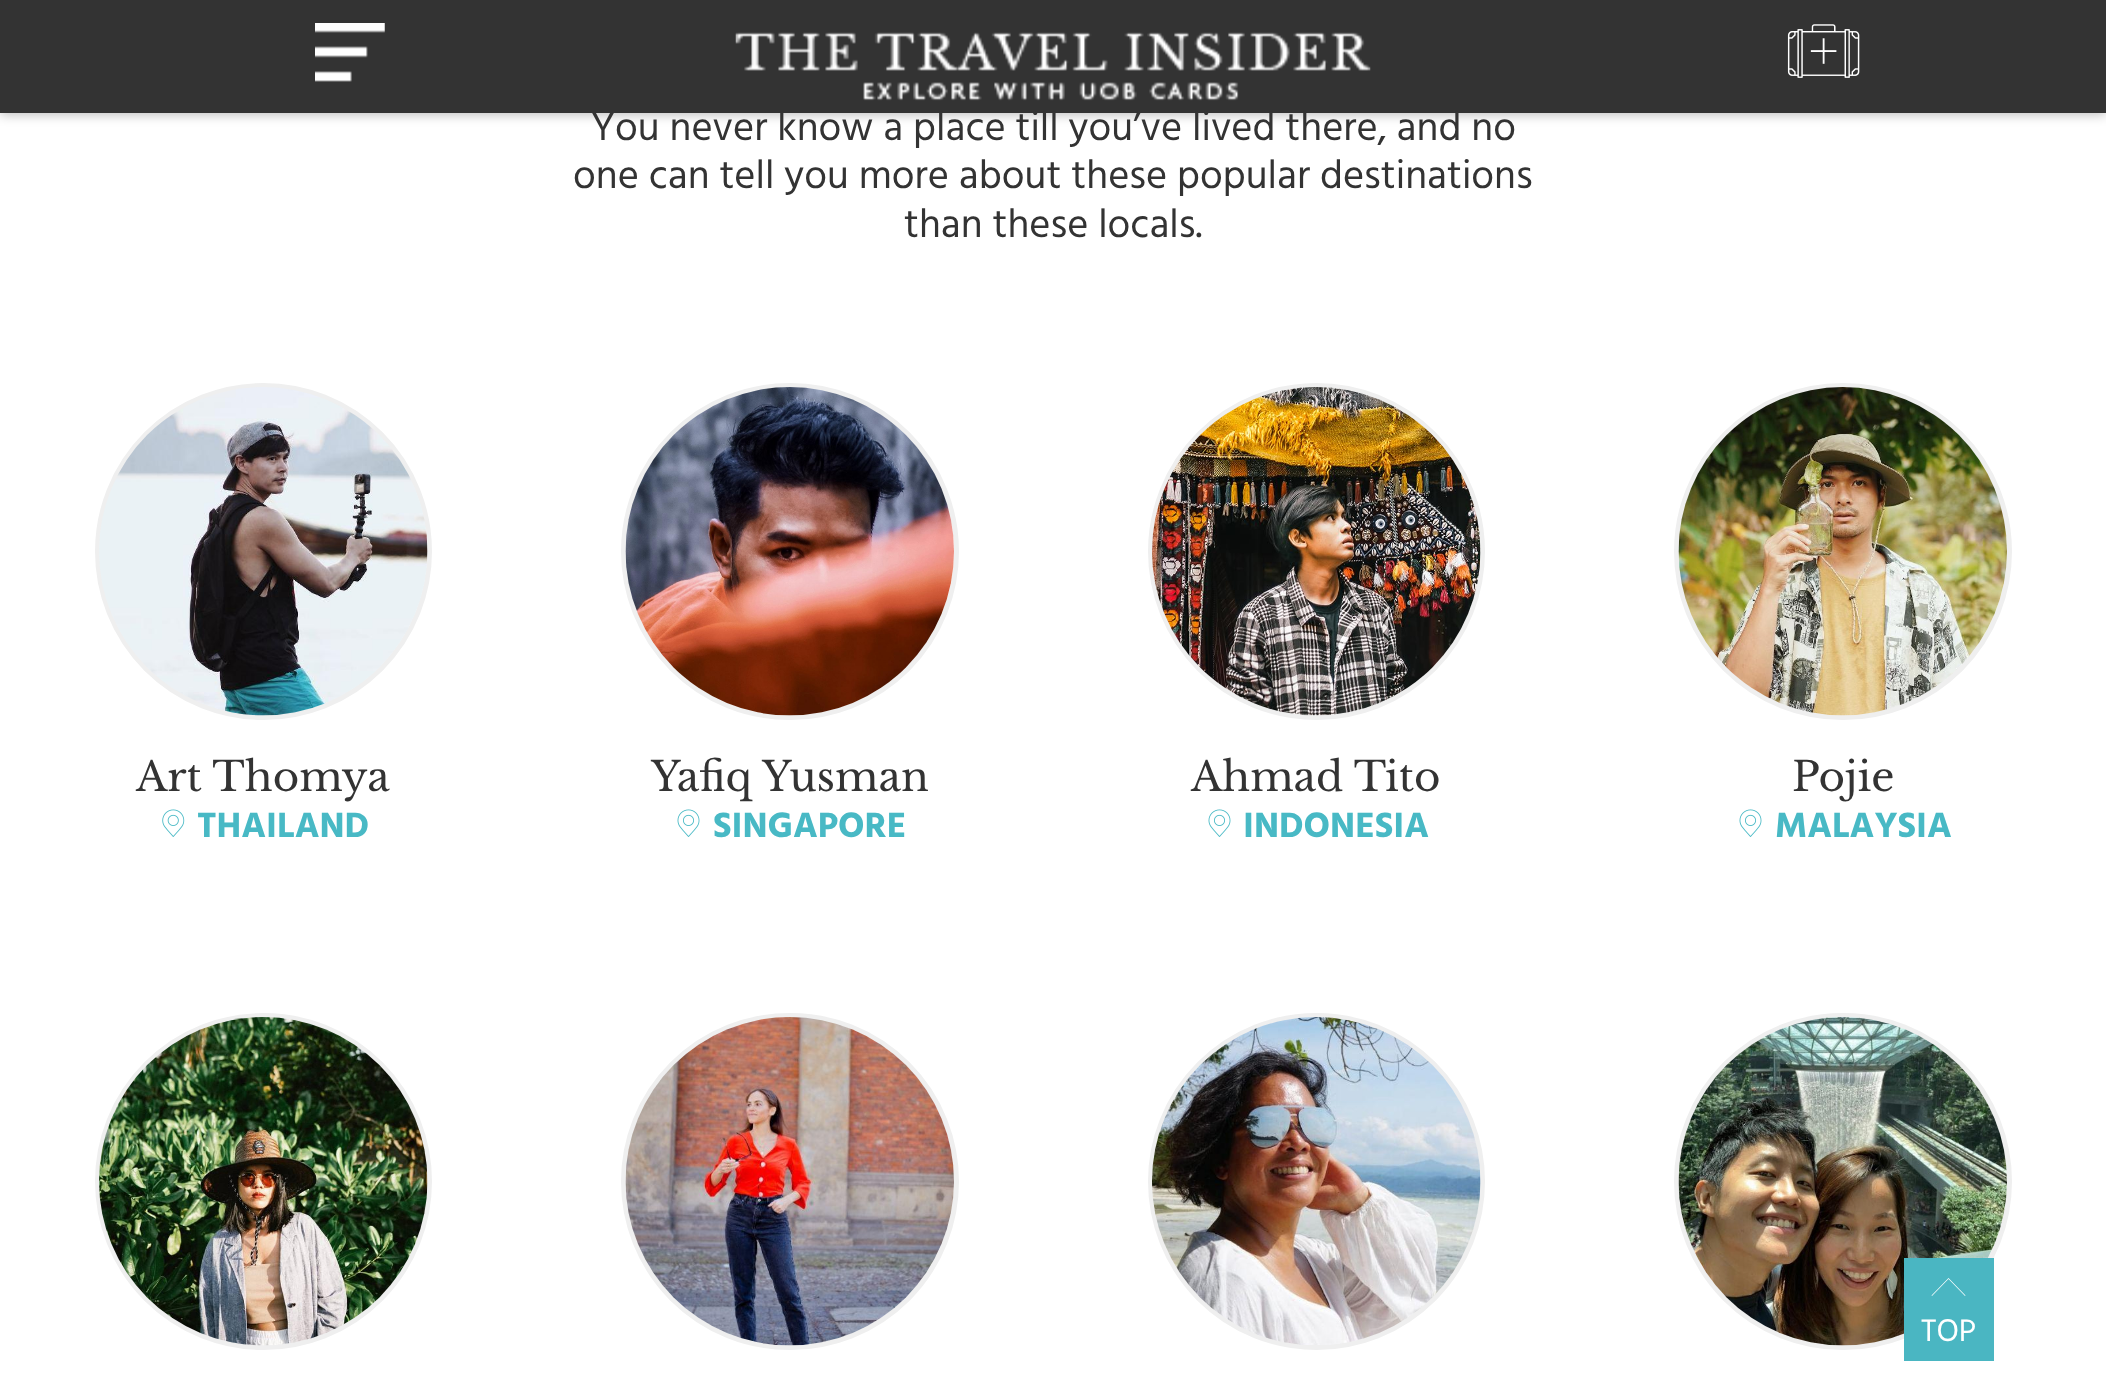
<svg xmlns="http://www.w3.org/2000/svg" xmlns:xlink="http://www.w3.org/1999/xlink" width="2106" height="1383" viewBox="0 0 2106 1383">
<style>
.cls-1{font:40.5px Hind Vadodara;fill:#333333}
.cls-2{font:40.5px Libre Baskerville;fill:#333333}
.cls-3{font:bold 36px Hind Vadodara;fill:#48b9c5}
.cls-4{font:32px Hind Vadodara;fill:#ffffff}
</style>
<rect width="100%" height="100%" fill="#ffffff"/>
<rect fill="#000000" fill-opacity="0.25" filter="blur(5.5px)" x="0" y="2" width="2106" height="113"/>
<rect fill="#333333" x="0" y="0" width="2106" height="113"/>
<image xlink:href="image0.png" x="315" y="23" width="70" height="59"/>
<image xlink:href="image1.png" x="735" y="32" width="636" height="69"/>
<image xlink:href="image2.png" x="1787" y="24" width="73" height="54"/>
<circle fill="none" stroke="#efefef" stroke-width="5" cx="263.5" cy="551.5" r="166"/>
<image xlink:href="image3.png" x="99" y="387" width="329" height="329"/>
<image xlink:href="image4.png" x="162" y="809" width="23" height="28"/>
<rect fill="none" stroke="#efefef" stroke-width="5" x="623.5" y="385.5" width="333" height="332" rx="166"/>
<image xlink:href="image5.png" x="625" y="387" width="329" height="329"/>
<image xlink:href="image6.png" x="677" y="809" width="23" height="28"/>
<circle fill="none" stroke="#efefef" stroke-width="5" cx="1316.5" cy="551.5" r="166"/>
<image xlink:href="image7.png" x="1152" y="387" width="329" height="329"/>
<image xlink:href="image6.png" x="1208" y="809" width="23" height="28"/>
<rect fill="none" stroke="#efefef" stroke-width="5" x="1676.5" y="385.5" width="333" height="332" rx="166"/>
<image xlink:href="image8.png" x="1678" y="387" width="329" height="329"/>
<image xlink:href="image6.png" x="1739" y="809" width="23" height="28"/>
<circle fill="none" stroke="#efefef" stroke-width="5" cx="263.5" cy="1181.5" r="166"/>
<image xlink:href="image9.png" x="99" y="1017" width="329" height="329"/>
<rect fill="none" stroke="#efefef" stroke-width="5" x="623.5" y="1015.5" width="333" height="332" rx="166"/>
<image xlink:href="image10.png" x="625" y="1017" width="329" height="329"/>
<circle fill="none" stroke="#efefef" stroke-width="5" cx="1316.5" cy="1181.5" r="166"/>
<image xlink:href="image11.png" x="1152" y="1017" width="329" height="328"/>
<rect fill="none" stroke="#efefef" stroke-width="5" x="1676.5" y="1015.5" width="333" height="332" rx="166"/>
<image xlink:href="image12.png" x="1678" y="1017" width="329" height="329"/>
<rect fill="#4ab6c2" x="1904" y="1258" width="90" height="103"/>
<path fill="#ffffff" d="M1931.5 1295.5L1948.5 1278L1965.5 1295.5L1965 1296L1948.5 1279L1932 1296Z"/>
<text class="cls-1" x="591" y="140">You never know a place till you’ve lived there, and no</text>
<text class="cls-1" x="573" y="188">one can tell you more about these popular destinations</text>
<text class="cls-1" x="904" y="237">than these locals.</text>
<text class="cls-2" x="136" y="791">Art Thomya</text>
<text class="cls-3" x="197" y="837">THAILAND</text>
<text class="cls-2" x="651" y="791">Yafiq Yusman</text>
<text class="cls-3" x="713" y="837">SINGAPORE</text>
<text class="cls-2" x="1191" y="791">Ahmad Tito</text>
<text class="cls-3" x="1243" y="837">INDONESIA</text>
<text class="cls-2" x="1792" y="791">Pojie</text>
<text class="cls-3" x="1775" y="837">MALAYSIA</text>
<text class="cls-4" x="1921" y="1341">TOP</text>
</svg>
